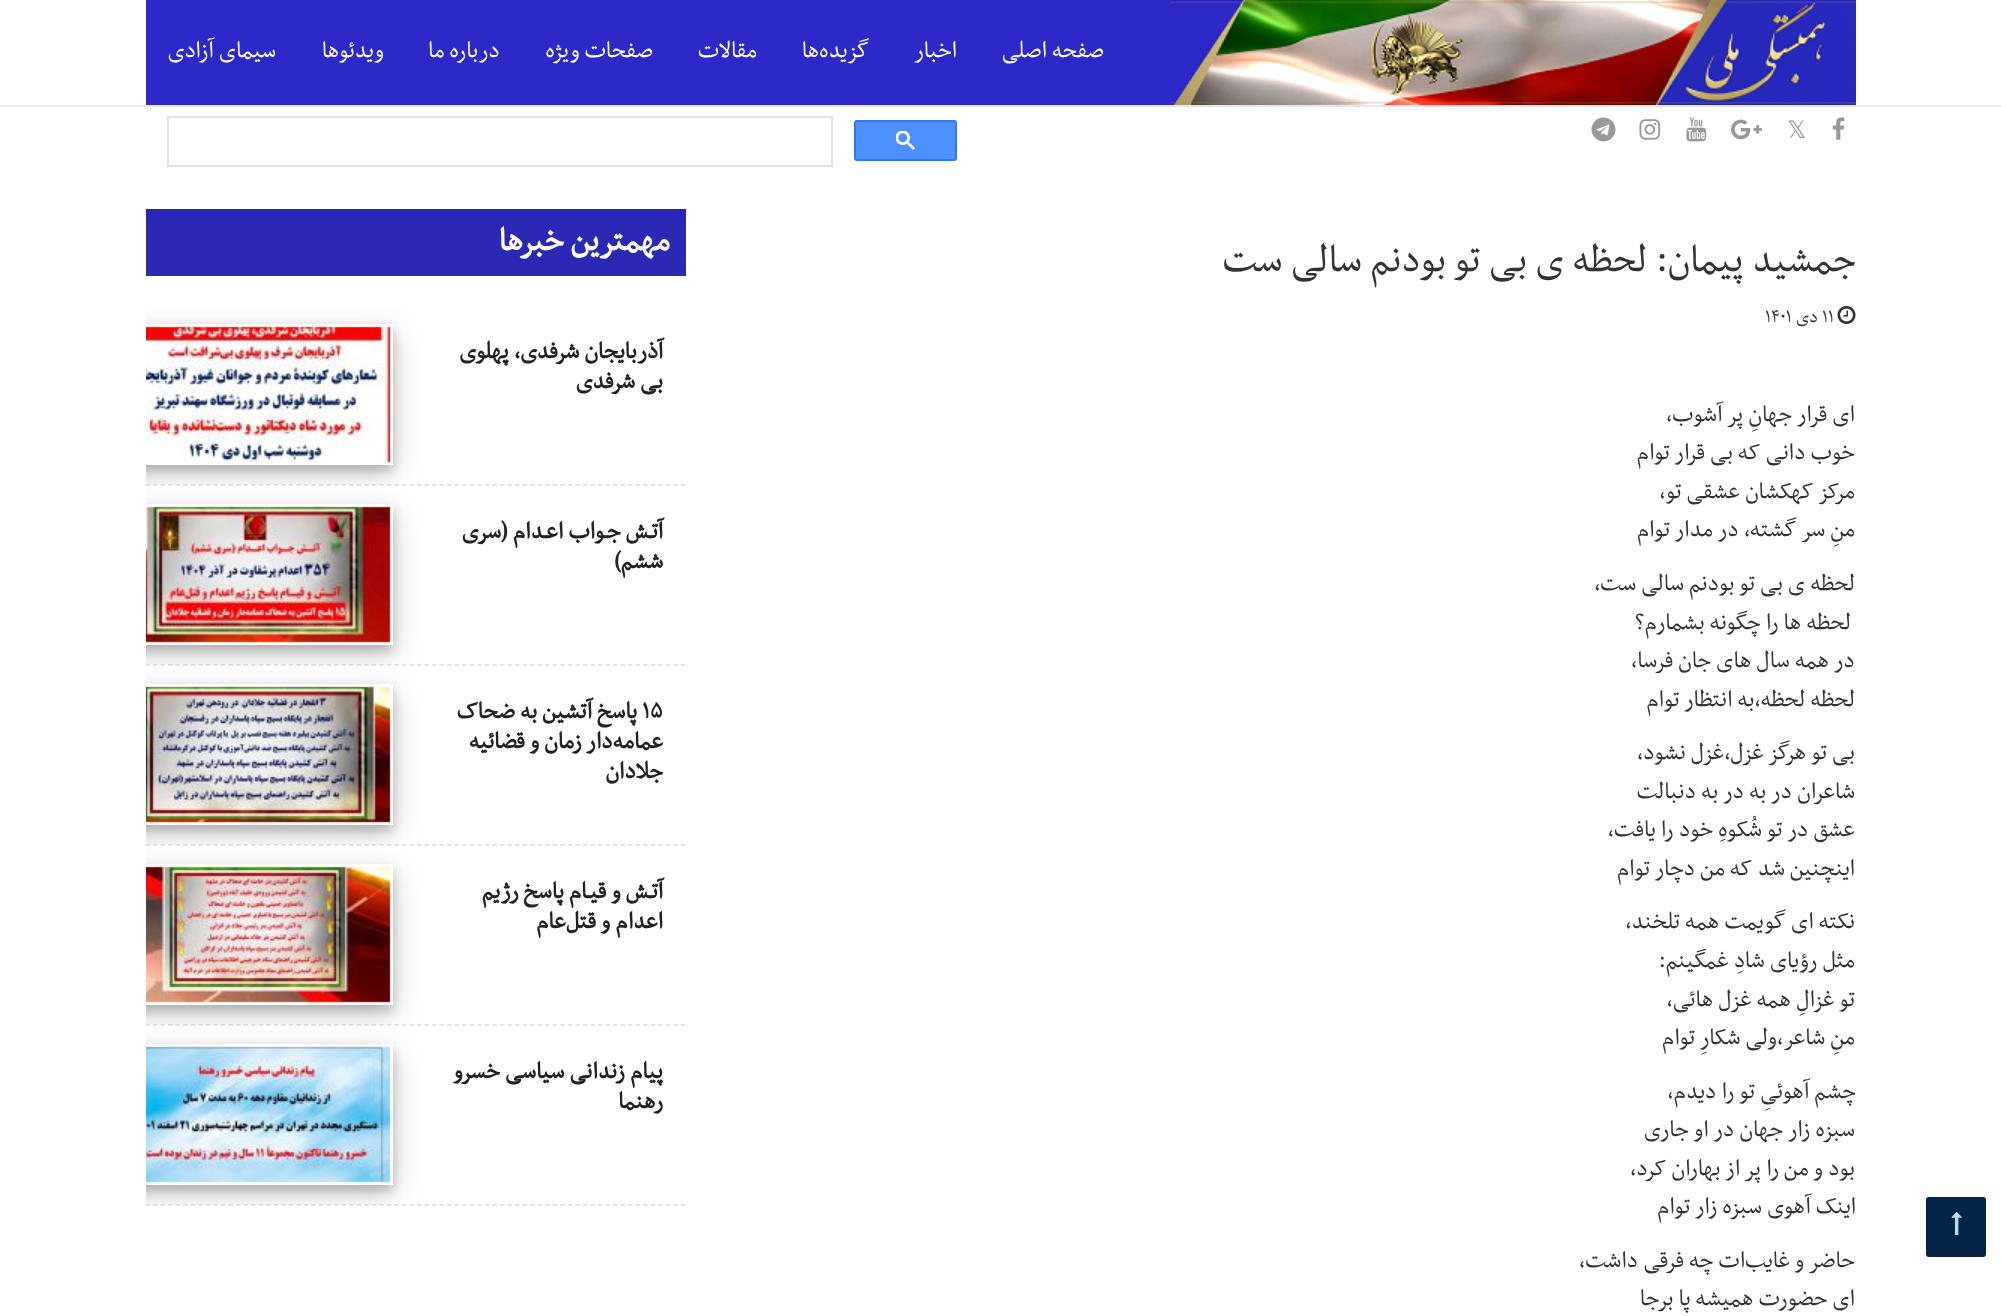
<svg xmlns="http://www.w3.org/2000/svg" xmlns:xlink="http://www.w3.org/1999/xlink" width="2001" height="1316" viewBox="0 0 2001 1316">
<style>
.cls-1{font:27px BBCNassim;direction:rtl;fill:#ffffff}
.cls-2{font:24px DejaVu Sans;fill:#999999}
.cls-3{font:45px BBCNassim;direction:rtl;fill:#333333}
.cls-4{font:21px BBCNassim;fill:#333333}
.cls-5{font:21px BBCNassim;direction:rtl;fill:#333333}
.cls-6{font:27px BBCNassim;direction:rtl;fill:#333333}
.cls-7{font:bold 37.5px BBCNassim;direction:rtl;fill:#ffffff}
.cls-8{font:bold 27px BBCNassim;direction:rtl;fill:#222222}
.cls-9{font:bold 27px BBCNassim;fill:#222222}
</style>
<defs>
<clipPath id="clip1"><rect x="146" y="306" width="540" height="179"/></clipPath>
<clipPath id="clip2"><path d="M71 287H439V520H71ZM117 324H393V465H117Z" clip-rule="evenodd"/></clipPath>
<clipPath id="clip3"><path d="M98 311H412V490H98ZM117 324H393V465H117Z" clip-rule="evenodd"/></clipPath>
<clipPath id="clip4"><rect x="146" y="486" width="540" height="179"/></clipPath>
<clipPath id="clip5"><path d="M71 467H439V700H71ZM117 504H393V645H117Z" clip-rule="evenodd"/></clipPath>
<clipPath id="clip6"><path d="M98 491H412V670H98ZM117 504H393V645H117Z" clip-rule="evenodd"/></clipPath>
<clipPath id="clip7"><rect x="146" y="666" width="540" height="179"/></clipPath>
<clipPath id="clip8"><path d="M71 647H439V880H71ZM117 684H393V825H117Z" clip-rule="evenodd"/></clipPath>
<clipPath id="clip9"><path d="M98 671H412V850H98ZM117 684H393V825H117Z" clip-rule="evenodd"/></clipPath>
<clipPath id="clip10"><rect x="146" y="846" width="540" height="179"/></clipPath>
<clipPath id="clip11"><path d="M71 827H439V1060H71ZM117 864H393V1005H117Z" clip-rule="evenodd"/></clipPath>
<clipPath id="clip12"><path d="M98 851H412V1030H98ZM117 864H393V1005H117Z" clip-rule="evenodd"/></clipPath>
<clipPath id="clip13"><rect x="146" y="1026" width="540" height="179"/></clipPath>
<clipPath id="clip14"><path d="M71 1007H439V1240H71ZM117 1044H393V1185H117Z" clip-rule="evenodd"/></clipPath>
<clipPath id="clip15"><path d="M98 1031H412V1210H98ZM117 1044H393V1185H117Z" clip-rule="evenodd"/></clipPath>
</defs>
<rect width="100%" height="100%" fill="#ffffff"/>
<rect fill="#e7e7e7" x="0" y="105" width="2001" height="2"/>
<image xlink:href="image0.png" x="1170" y="0" width="686" height="105"/>
<rect fill="#2d29c8" x="146" y="0" width="1024" height="105"/>
<image xlink:href="image1.png" x="1832" y="117" width="13" height="23"/>
<image xlink:href="image2.png" x="1731" y="119" width="31" height="21"/>
<image xlink:href="image3.png" x="1686" y="117" width="21" height="25"/>
<image xlink:href="image4.png" x="1639" y="119" width="22" height="21"/>
<image xlink:href="image5.png" x="1591" y="117" width="25" height="25"/>
<rect fill="#4d90fe" stroke="#3079ed" stroke-width="2" x="855" y="121" width="101" height="39" rx="2"/>
<image xlink:href="image6.png" x="896" y="131" width="19" height="19"/>
<rect fill="none" stroke="#dfe1e5" stroke-width="2" x="168" y="117" width="664" height="49"/>
<rect fill="#062448" x="1926" y="1197" width="60" height="60" rx="3"/>
<image xlink:href="image7.png" x="1951" y="1211" width="11" height="24"/>
<image xlink:href="image8.png" x="1837" y="306" width="19" height="18"/>
<rect fill="#2b28b5" x="146" y="209" width="540" height="67"/>
<path fill="none" stroke="#dddddd" stroke-width="1.5" stroke-dasharray="4.5 3.04" d="M145.5 485H685.5"/>
<g clip-path="url(#clip1)">
<g clip-path="url(#clip2)">
<rect fill="#000000" fill-opacity="0.19" filter="blur(15px)" x="117" y="333" width="276" height="141"/>
</g>
</g>
<g clip-path="url(#clip1)">
<g clip-path="url(#clip3)">
<rect fill="#000000" fill-opacity="0.2" filter="blur(6px)" x="117" y="330" width="276" height="141"/>
</g>
</g>
<image xlink:href="image9.png" x="146" y="326" width="245" height="137"/>
<path fill="none" stroke="#dddddd" stroke-width="1.5" stroke-dasharray="4.5 3.04" d="M145.5 665H685.5"/>
<g clip-path="url(#clip4)">
<g clip-path="url(#clip5)">
<rect fill="#000000" fill-opacity="0.19" filter="blur(15px)" x="117" y="513" width="276" height="141"/>
</g>
</g>
<g clip-path="url(#clip4)">
<g clip-path="url(#clip6)">
<rect fill="#000000" fill-opacity="0.2" filter="blur(6px)" x="117" y="510" width="276" height="141"/>
</g>
</g>
<image xlink:href="image10.png" x="146" y="506" width="245" height="137"/>
<path fill="none" stroke="#dddddd" stroke-width="1.5" stroke-dasharray="4.5 3.04" d="M145.5 845H685.5"/>
<g clip-path="url(#clip7)">
<g clip-path="url(#clip8)">
<rect fill="#000000" fill-opacity="0.19" filter="blur(15px)" x="117" y="693" width="276" height="141"/>
</g>
</g>
<g clip-path="url(#clip7)">
<g clip-path="url(#clip9)">
<rect fill="#000000" fill-opacity="0.2" filter="blur(6px)" x="117" y="690" width="276" height="141"/>
</g>
</g>
<image xlink:href="image11.png" x="146" y="686" width="245" height="137"/>
<path fill="none" stroke="#dddddd" stroke-width="1.5" stroke-dasharray="4.5 3.04" d="M145.5 1025H685.5"/>
<g clip-path="url(#clip10)">
<g clip-path="url(#clip11)">
<rect fill="#000000" fill-opacity="0.19" filter="blur(15px)" x="117" y="873" width="276" height="141"/>
</g>
</g>
<g clip-path="url(#clip10)">
<g clip-path="url(#clip12)">
<rect fill="#000000" fill-opacity="0.2" filter="blur(6px)" x="117" y="870" width="276" height="141"/>
</g>
</g>
<image xlink:href="image12.png" x="146" y="866" width="245" height="137"/>
<path fill="none" stroke="#dddddd" stroke-width="1.5" stroke-dasharray="4.5 3.04" d="M145.5 1205H685.5"/>
<g clip-path="url(#clip13)">
<g clip-path="url(#clip14)">
<rect fill="#000000" fill-opacity="0.19" filter="blur(15px)" x="117" y="1053" width="276" height="141"/>
</g>
</g>
<g clip-path="url(#clip13)">
<g clip-path="url(#clip15)">
<rect fill="#000000" fill-opacity="0.2" filter="blur(6px)" x="117" y="1050" width="276" height="141"/>
</g>
</g>
<image xlink:href="image13.png" x="146" y="1046" width="245" height="137"/>
<text class="cls-1" x="1104" y="57">صفحه اصلی</text>
<text class="cls-1" x="957" y="57">اخبار</text>
<text class="cls-1" x="869" y="57">گزیده‌ها</text>
<text class="cls-1" x="757" y="57">مقالات</text>
<text class="cls-1" x="653" y="57">صفحات ویژه</text>
<text class="cls-1" x="500" y="57">درباره ما</text>
<text class="cls-1" x="384" y="57">ویدئوها</text>
<text class="cls-1" x="276" y="57">سیمای آزادی</text>
<text class="cls-2" x="1787" y="138">𝕏</text>
<text class="cls-3" x="1856" y="271">جمشید پیمان‌: لحظه ی بی تو بودنم سالی ست</text>
<text class="cls-4" x="1822" y="322">۱۱</text>
<text class="cls-5" x="1818" y="322">دی</text>
<text class="cls-4" x="1765" y="322">۱۴۰۱</text>
<text class="cls-6"><tspan x="1855" y="421">ای قرار جهانِ پر آشوب،</tspan><tspan x="1855" y="459">خوب دانی که بی قرار توام</tspan><tspan x="1855" y="498">مرکز کهکشان عشقی تو،</tspan><tspan x="1855" y="536">منِ سر گشته، در مدار توام</tspan></text>
<text class="cls-6" x="1855" y="590">لحظه ی بی تو بودنم سالی ست،</text>
<text class="cls-6" x="1851" y="629">لحظه ها را چگونه بشمارم؟</text>
<text class="cls-6"><tspan x="1855" y="667">در همه سال های جان فرسا،</tspan><tspan x="1855" y="706">لحظه لحظه،به انتظار توام</tspan><tspan x="1855" y="759">بی تو هرگز غزل،غزل نشود،</tspan><tspan x="1855" y="798">شاعران در به در به دنبالت</tspan><tspan x="1855" y="836">عشق در تو شُکوهِ خود را یافت،</tspan><tspan x="1855" y="875">اینچنین شد که من دچار توام</tspan><tspan x="1855" y="928">نکته ای گویمت همه تلخند،</tspan><tspan x="1855" y="967">مثل رؤیای شادِ غمگینم:</tspan><tspan x="1855" y="1006">تو غزالِ همه غزل هائی،</tspan><tspan x="1855" y="1044">منِ شاعر،ولی شکارِ توام</tspan></text>
<text class="cls-6" x="1856" y="1098">چشم آهوئیِ تو را دیدم،</text>
<text class="cls-6"><tspan x="1855" y="1136">سبزه زار جهان در او جاری</tspan><tspan x="1855" y="1175">بود و من را پر از بهاران کرد،</tspan></text>
<text class="cls-6" x="1856" y="1213">اینک آهوی سبزه زار توام</text>
<text class="cls-6"><tspan x="1855" y="1267">حاضر و غایب‌ات چه فرقی داشت،</tspan><tspan x="1855" y="1305">ای حضورت همیشه پا برجا</tspan></text>
<text class="cls-7" x="670" y="250">مهمترین خبرها</text>
<text class="cls-8"><tspan x="663" y="358">آذربایجان شرفدی، پهلوی</tspan><tspan x="663" y="388">بی شرفدی</tspan></text>
<text class="cls-8"><tspan x="663" y="538">آتـش جـواب اعـدام (سری</tspan><tspan x="663" y="568">ششم)</tspan></text>
<text class="cls-9" x="642" y="718">۱۵</text>
<text class="cls-8" x="637" y="718">پاسخ آتشین به ضحاک</text>
<text class="cls-8"><tspan x="663" y="748">عمامه‌دار زمان و قضائیه</tspan><tspan x="663" y="778">جلادان</tspan></text>
<text class="cls-8"><tspan x="663" y="898">آتـش و قیـام پاسخ رژیم</tspan><tspan x="663" y="928">اعدام و قتل‌عام</tspan></text>
<text class="cls-8"><tspan x="663" y="1078">پیام زندانی سیاسی خسرو</tspan><tspan x="663" y="1108">رهنما</tspan></text>
</svg>
